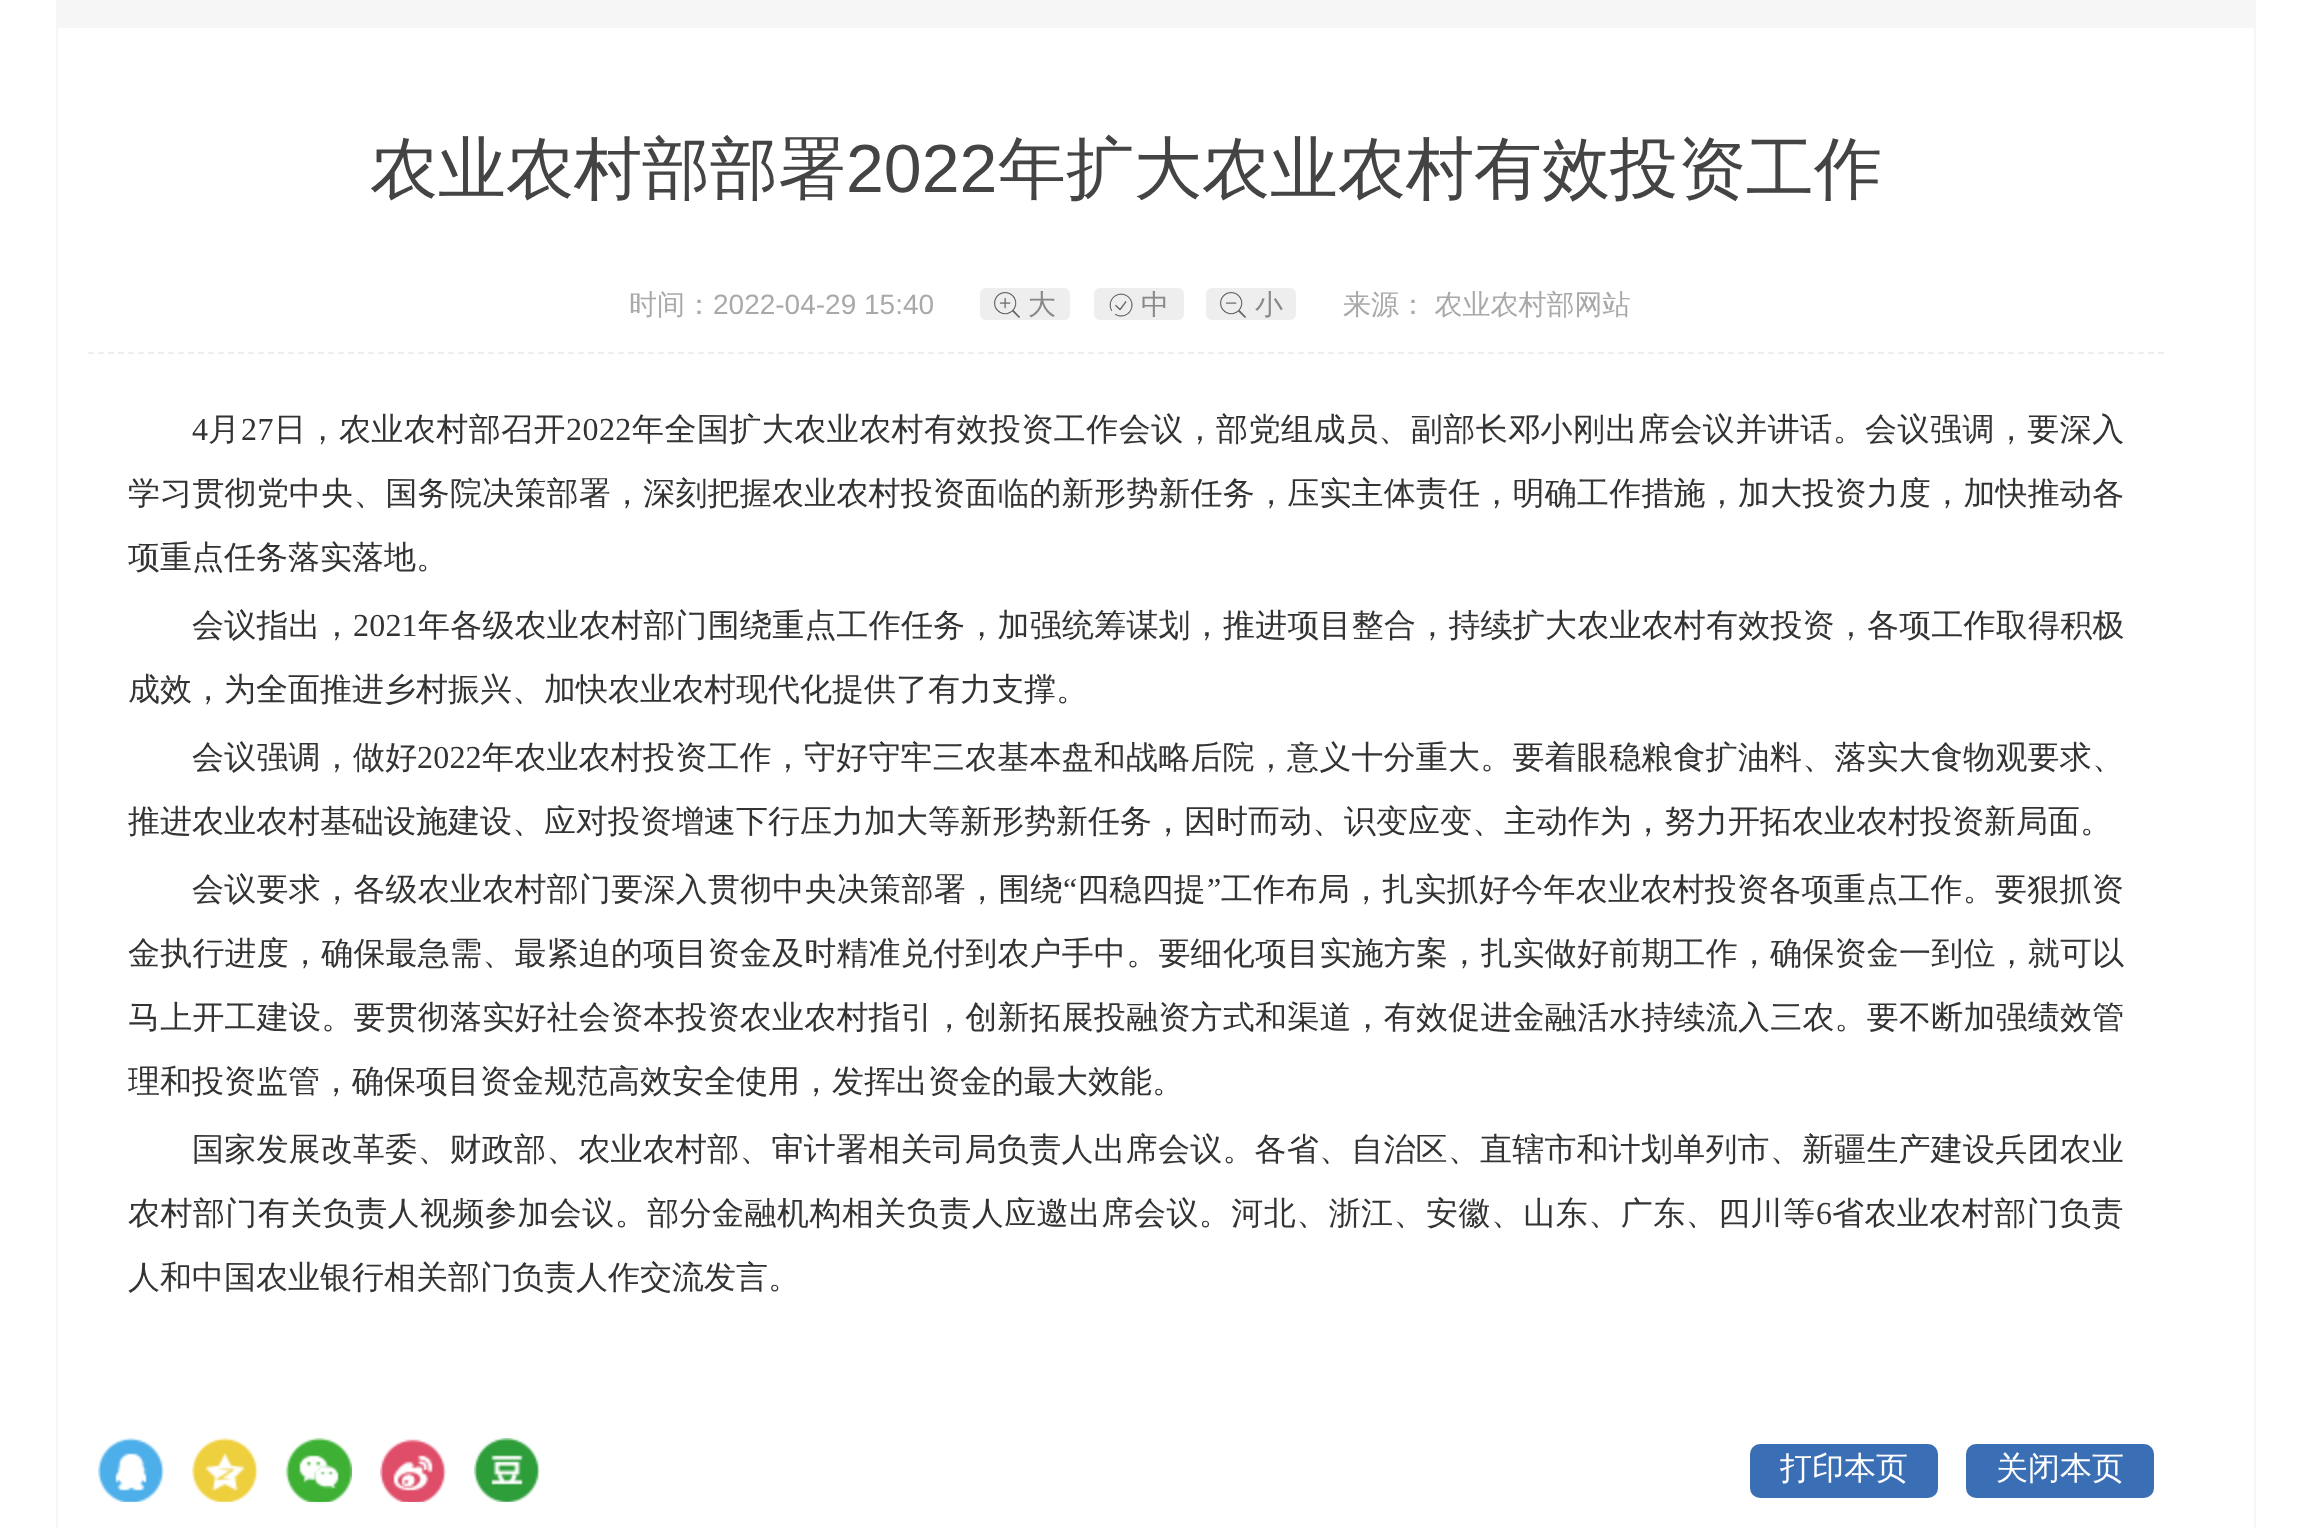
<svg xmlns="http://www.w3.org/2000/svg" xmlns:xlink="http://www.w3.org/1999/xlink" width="2312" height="1528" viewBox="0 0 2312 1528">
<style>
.cls-1{font:500 68px WenQuanYi Zen Hei;fill:#444444}
.cls-2{font:68px Liberation Sans;fill:#444444}
.cls-3{font:500 28px WenQuanYi Zen Hei;fill:#a9a9a9}
.cls-4{font:28px Liberation Sans;fill:#a9a9a9}
.cls-5{font:500 28px WenQuanYi Zen Hei;fill:#888888}
.cls-6{font:32px Liberation Serif;letter-spacing:0.45px;fill:#333333}
.cls-7{font:500 32px WenQuanYi Zen Hei;letter-spacing:0.45px;fill:#333333}
.cls-8{font:500 32px WenQuanYi Zen Hei;letter-spacing:0.2px;fill:#333333}
.cls-9{font:500 32px WenQuanYi Zen Hei;fill:#333333}
.cls-10{font:32px Liberation Serif;letter-spacing:0.2px;fill:#333333}
.cls-11{font:500 32px WenQuanYi Zen Hei;letter-spacing:0.25px;fill:#333333}
.cls-12{font:32px Liberation Serif;letter-spacing:0.25px;fill:#333333}
.cls-13{font:500 32px WenQuanYi Zen Hei;fill:#ffffff}
</style>
<rect width="100%" height="100%" fill="#ffffff"/>
<rect fill="#f6f6f6" x="2254" y="0" width="2" height="1528"/>
<rect fill="#f6f6f6" x="56" y="0" width="2" height="1528"/>
<rect fill="#f6f6f6" x="58" y="0" width="2196" height="28"/>
<path fill="none" stroke="#eeeeee" stroke-width="2" stroke-dasharray="6 4" d="M88 353H2164"/>
<rect fill="#eeeeee" x="980" y="288" width="90" height="32" rx="6"/>
<image xlink:href="image0.png" x="994" y="292" width="26" height="26"/>
<rect fill="#eeeeee" x="1094" y="288" width="90" height="32" rx="6"/>
<image xlink:href="image1.png" x="1109" y="293" width="24" height="24"/>
<rect fill="#eeeeee" x="1206" y="288" width="90" height="32" rx="6"/>
<image xlink:href="image2.png" x="1220" y="292" width="26" height="26"/>
<image xlink:href="image3.png" x="98" y="1438" width="66" height="64"/>
<image xlink:href="image4.png" x="192" y="1438" width="66" height="64"/>
<image xlink:href="image5.png" x="286" y="1438" width="66" height="64"/>
<image xlink:href="image6.png" x="380" y="1439" width="66" height="63"/>
<image xlink:href="image7.png" x="474" y="1438" width="66" height="64"/>
<rect fill="#3a6fb5" x="1750" y="1444" width="188" height="54" rx="10"/>
<rect fill="#3a6fb5" x="1966" y="1444" width="188" height="54" rx="10"/>
<text class="cls-1" x="370" y="192">农业农村部部署</text>
<text class="cls-2" x="846" y="192">2022</text>
<text class="cls-1" x="998" y="192">年扩大农业农村有效投资工作</text>
<text class="cls-3" x="629" y="314">时间：</text>
<text class="cls-4" x="713" y="314">2022-04-29 15:40</text>
<text class="cls-5" x="1028" y="314">大</text>
<text class="cls-5" x="1141" y="314">中</text>
<text class="cls-5" x="1255" y="314">小</text>
<text class="cls-3" x="1343" y="314" word-spacing="-1">来源： 农业农村部网站</text>
<text class="cls-6" x="192" y="440">4</text>
<text class="cls-7" x="208" y="440">月</text>
<text class="cls-6" x="241" y="440">27</text>
<text class="cls-7" x="274" y="440">日，农业农村部召开</text>
<text class="cls-6" x="566" y="440">2022</text>
<text class="cls-7" x="632" y="440">年全国扩大农业农村有效投资工作会议，部党组成员、副部长邓小刚出席会议并讲话。会议强调，要深入</text>
<text class="cls-8" x="128" y="504">学习贯彻党中央、国务院决策部署，深刻把握农业农村投资面临的新形势新任务，压实主体责任，明确工作措施，加大投资力度，加快推动各</text>
<text class="cls-9" x="128" y="568">项重点任务落实落地。</text>
<text class="cls-8" x="192" y="636">会议指出，</text>
<text class="cls-10" x="353" y="636">2021</text>
<text class="cls-8" x="418" y="636">年各级农业农村部门围绕重点工作任务，加强统筹谋划，推进项目整合，持续扩大农业农村有效投资，各项工作取得积极</text>
<text class="cls-9" x="128" y="700">成效，为全面推进乡村振兴、加快农业农村现代化提供了有力支撑。</text>
<text class="cls-8" x="192" y="768">会议强调，做好</text>
<text class="cls-10" x="417" y="768">2022</text>
<text class="cls-8" x="482" y="768">年农业农村投资工作，守好守牢三农基本盘和战略后院，意义十分重大。要着眼稳粮食扩油料、落实大食物观要求、</text>
<text class="cls-9" x="128" y="832">推进农业农村基础设施建设、应对投资增速下行压力加大等新形势新任务，因时而动、识变应变、主动作为，努力开拓农业农村投资新局面。</text>
<text class="cls-11" x="192" y="900">会议要求，各级农业农村部门要深入贯彻中央决策部署，围绕</text>
<text class="cls-12" x="1063" y="900">“</text>
<text class="cls-11" x="1077" y="900">四稳四提</text>
<text class="cls-12" x="1207" y="900">”</text>
<text class="cls-11" x="1221" y="900">工作布局，扎实抓好今年农业农村投资各项重点工作。要狠抓资</text>
<text class="cls-8" x="128" y="964">金执行进度，确保最急需、最紧迫的项目资金及时精准兑付到农户手中。要细化项目实施方案，扎实做好前期工作，确保资金一到位，就可以</text>
<text class="cls-8" x="128" y="1028">马上开工建设。要贯彻落实好社会资本投资农业农村指引，创新拓展投融资方式和渠道，有效促进金融活水持续流入三农。要不断加强绩效管</text>
<text class="cls-9" x="128" y="1092">理和投资监管，确保项目资金规范高效安全使用，发挥出资金的最大效能。</text>
<text class="cls-8" x="192" y="1160">国家发展改革委、财政部、农业农村部、审计署相关司局负责人出席会议。各省、自治区、直辖市和计划单列市、新疆生产建设兵团农业</text>
<text class="cls-7" x="128" y="1224">农村部门有关负责人视频参加会议。部分金融机构相关负责人应邀出席会议。河北、浙江、安徽、山东、广东、四川等</text>
<text class="cls-6" x="1816" y="1224">6</text>
<text class="cls-7" x="1832" y="1224">省农业农村部门负责</text>
<text class="cls-9" x="128" y="1288">人和中国农业银行相关部门负责人作交流发言。</text>
<text class="cls-13" x="1780" y="1479">打印本页</text>
<text class="cls-13" x="1996" y="1479">关闭本页</text>
</svg>
